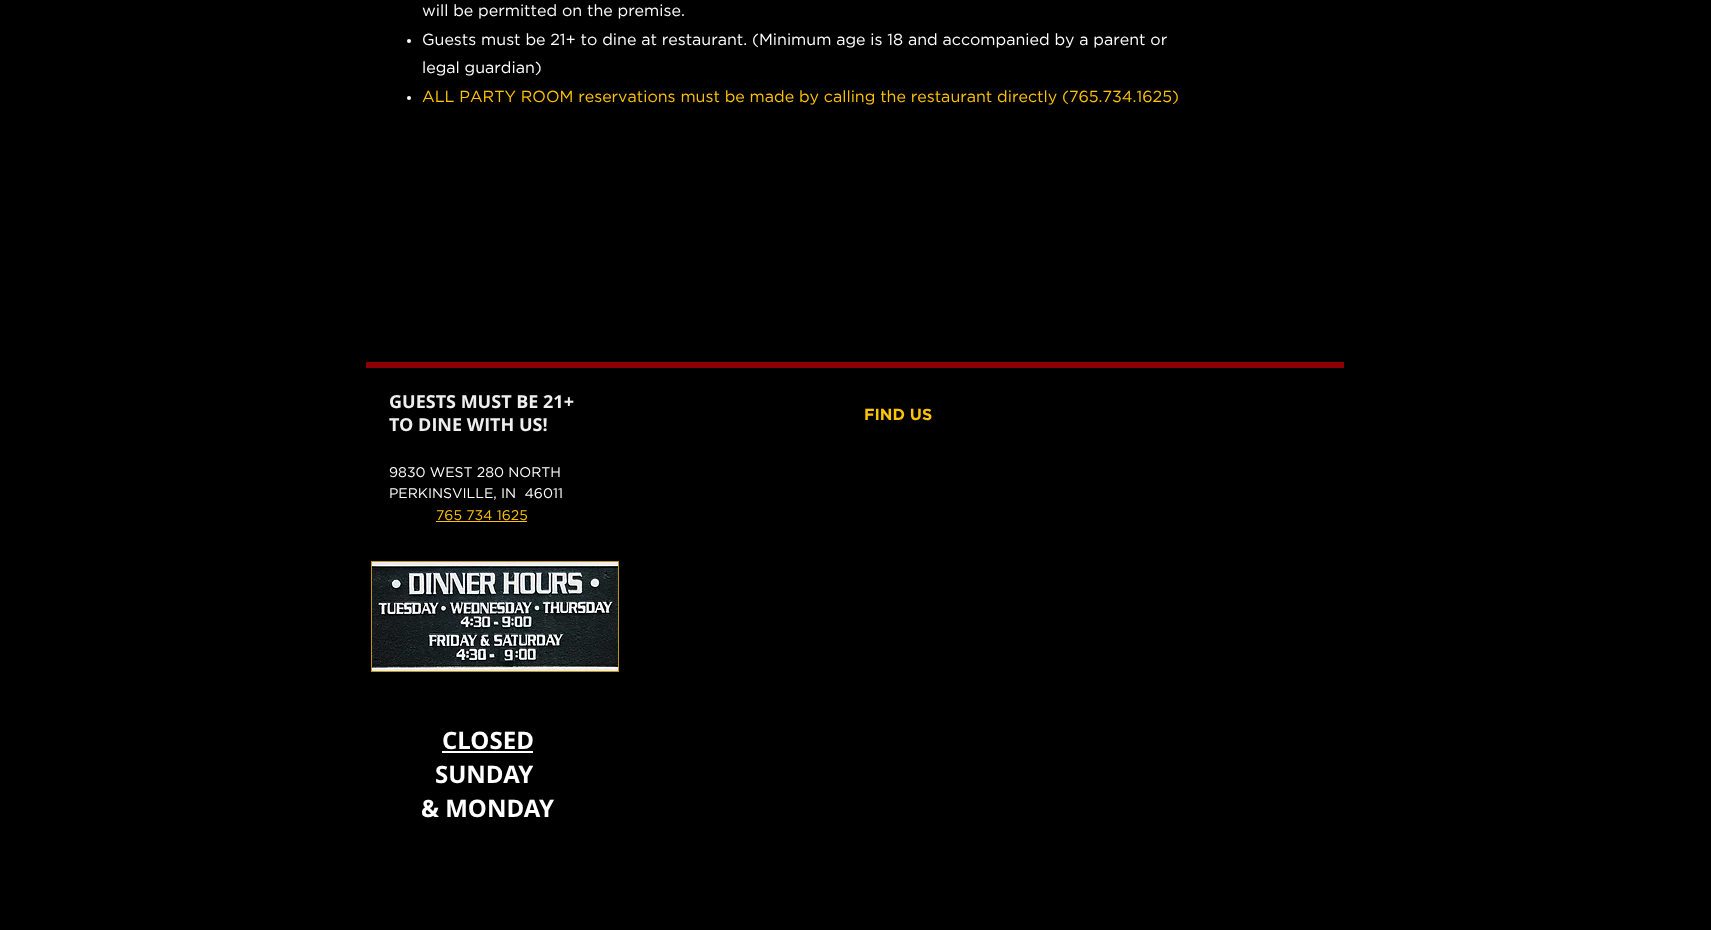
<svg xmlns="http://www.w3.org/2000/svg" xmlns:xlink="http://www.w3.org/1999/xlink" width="1711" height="930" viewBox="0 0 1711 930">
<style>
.cls-1{font:16px Gotham;fill:#ffffff}
.cls-2{font:16px Gotham;fill:#ffc400}
.cls-3{font:bold 18px Open Sans;fill:#efefef}
.cls-4{font:14px Gotham;fill:#ffffff}
.cls-5{font:14px Gotham;fill:#ffc400}
.cls-6{font:bold 16px Gotham;fill:#ffc400}
.cls-7{font:bold 24px Open Sans;fill:#ffffff}
</style>
<rect width="100%" height="100%" fill="#000000"/>
<circle fill="#ffffff" cx="409" cy="41" r="2"/>
<circle fill="#ffffff" cx="409" cy="98" r="2"/>
<rect fill="#8b0000" x="366" y="362" width="978" height="6"/>
<rect fill="#ffc400" x="436" y="521" width="91" height="1"/>
<rect fill="#bf9515" x="371" y="561" width="248" height="111"/>
<image xlink:href="image0.png" x="372" y="562" width="246" height="109"/>
<rect fill="#ffffff" x="442" y="751" width="91" height="2"/>
<text class="cls-1"><tspan x="422" y="16">will be permitted on the premise.</tspan><tspan x="422" y="45">Guests must be 21+ to dine at restaurant. (Minimum age is 18 and accompanied by a parent or</tspan><tspan x="422" y="73">legal guardian)</tspan></text>
<text class="cls-2" x="422" y="102">ALL PARTY ROOM reservations must be made by calling the restaurant directly (765.734.1625)</text>
<text class="cls-3"><tspan x="389" y="408">GUESTS MUST BE 21+</tspan><tspan x="389" y="431">TO DINE WITH US!</tspan></text>
<text class="cls-4" xml:space="preserve"><tspan x="389" y="477">9830 WEST 280 NORTH</tspan><tspan x="389" y="498">PERKINSVILLE, IN  46011</tspan></text>
<text class="cls-5" x="436" y="520">765 734 1625</text>
<text class="cls-6" x="864" y="420">FIND US</text>
<text class="cls-7" x="442" y="749">CLOSED</text>
<text class="cls-7" x="435" y="783">SUNDAY</text>
<text class="cls-7" x="421" y="817">&amp; MONDAY</text>
</svg>
